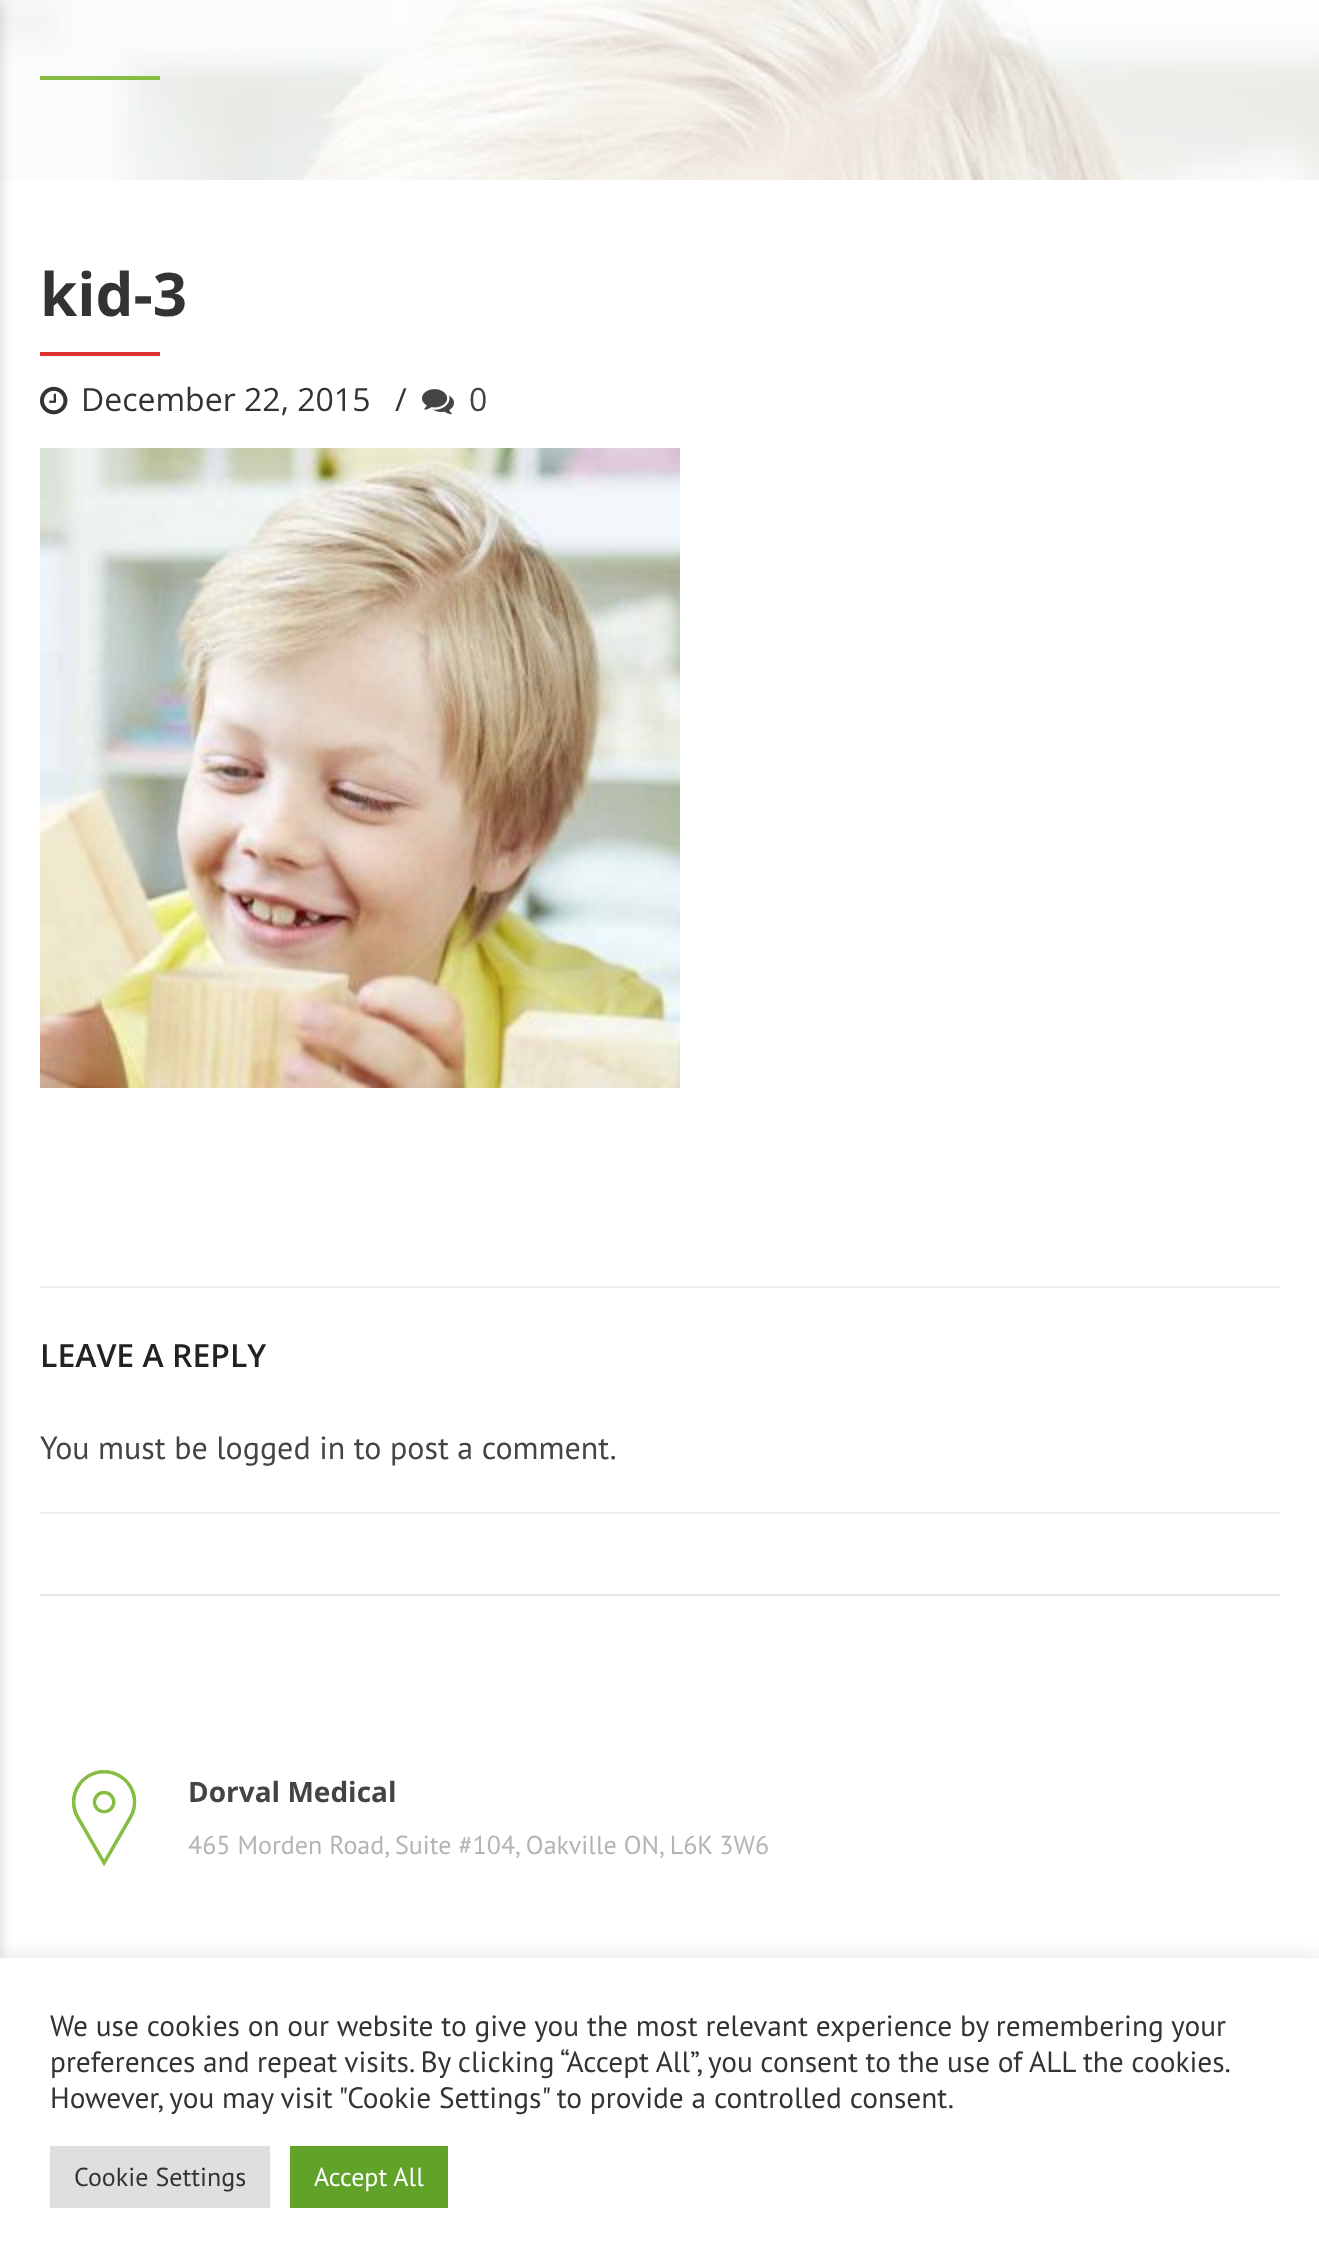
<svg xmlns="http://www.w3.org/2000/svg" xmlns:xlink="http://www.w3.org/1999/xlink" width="1319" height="2268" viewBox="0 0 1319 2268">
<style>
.cls-1{font:bold 60px Open Sans;fill:#333333}
.cls-2{font:32px Open Sans;fill:#333333}
.cls-3{font:32px Open Sans;fill:#444444}
.cls-4{font:600 32px Open Sans;fill:#222222}
.cls-5{font:32px PT Sans;fill:#444444}
.cls-6{font:bold 28px Open Sans;fill:#444444}
.cls-7{font:26px PT Sans;fill:#b4b4b4}
.cls-8{font:29.35px PT Sans;fill:#333333}
.cls-9{font:26px PT Sans;fill:#333333}
.cls-10{font:26px PT Sans;fill:#ffffff}
</style>
<rect width="100%" height="100%" fill="#ffffff"/>
<image xlink:href="image0.png" x="0" y="0" width="1319" height="180"/>
<rect fill="#000000" fill-opacity="0.1" filter="blur(5px)" x="-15" y="0" width="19" height="2268"/>
<rect fill="#88bd44" x="40" y="76" width="120" height="4"/>
<rect fill="#dd3333" x="40" y="352" width="120" height="4"/>
<image xlink:href="image1.png" x="40" y="386" width="28" height="29"/>
<image xlink:href="image2.png" x="422" y="389" width="32" height="26"/>
<image xlink:href="image3.png" x="40" y="448" width="640" height="640"/>
<rect fill="#ededed" x="40" y="1286" width="1240" height="2"/>
<rect fill="#ededed" x="40" y="1512" width="1240" height="2"/>
<rect fill="#e6e6e6" x="40" y="1594" width="1240" height="2"/>
<image xlink:href="image4.png" x="72" y="1770" width="65" height="96"/>
<image xlink:href="image5.png" x="72" y="1770" width="65" height="96"/>
<rect fill="#acabab" fill-opacity="0.3" filter="blur(10px)" x="0" y="1956" width="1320" height="310"/>
<rect fill="#ffffff" x="0" y="1958" width="1319" height="310"/>
<rect fill="#dedfe0" x="50" y="2146" width="220" height="62"/>
<rect fill="#61a229" x="290" y="2146" width="158" height="62"/>
<text class="cls-1" x="40" y="316">kid-3</text>
<text class="cls-2" x="81" y="411">December 22, 2015</text>
<text class="cls-2" x="395" y="411">/</text>
<text class="cls-3" x="469" y="411">0</text>
<text class="cls-4" x="40" y="1367">LEAVE A REPLY</text>
<text class="cls-5" x="40" y="1459">You must be logged in to post a comment.</text>
<text class="cls-6" x="188" y="1802">Dorval Medical</text>
<text class="cls-7" x="188" y="1854">465 Morden Road, Suite #104, Oakville ON, L6K 3W6</text>
<text class="cls-8"><tspan x="50" y="2036">We use cookies on our website to give you the most relevant experience by remembering your</tspan><tspan x="50" y="2072" word-spacing="-0.25">preferences and repeat visits. By clicking “Accept All”, you consent to the use of ALL the cookies.</tspan><tspan x="50" y="2108">However, you may visit "Cookie Settings" to provide a controlled consent.</tspan></text>
<text class="cls-9" x="74" y="2186">Cookie Settings</text>
<text class="cls-10" x="314" y="2186">Accept All</text>
</svg>
